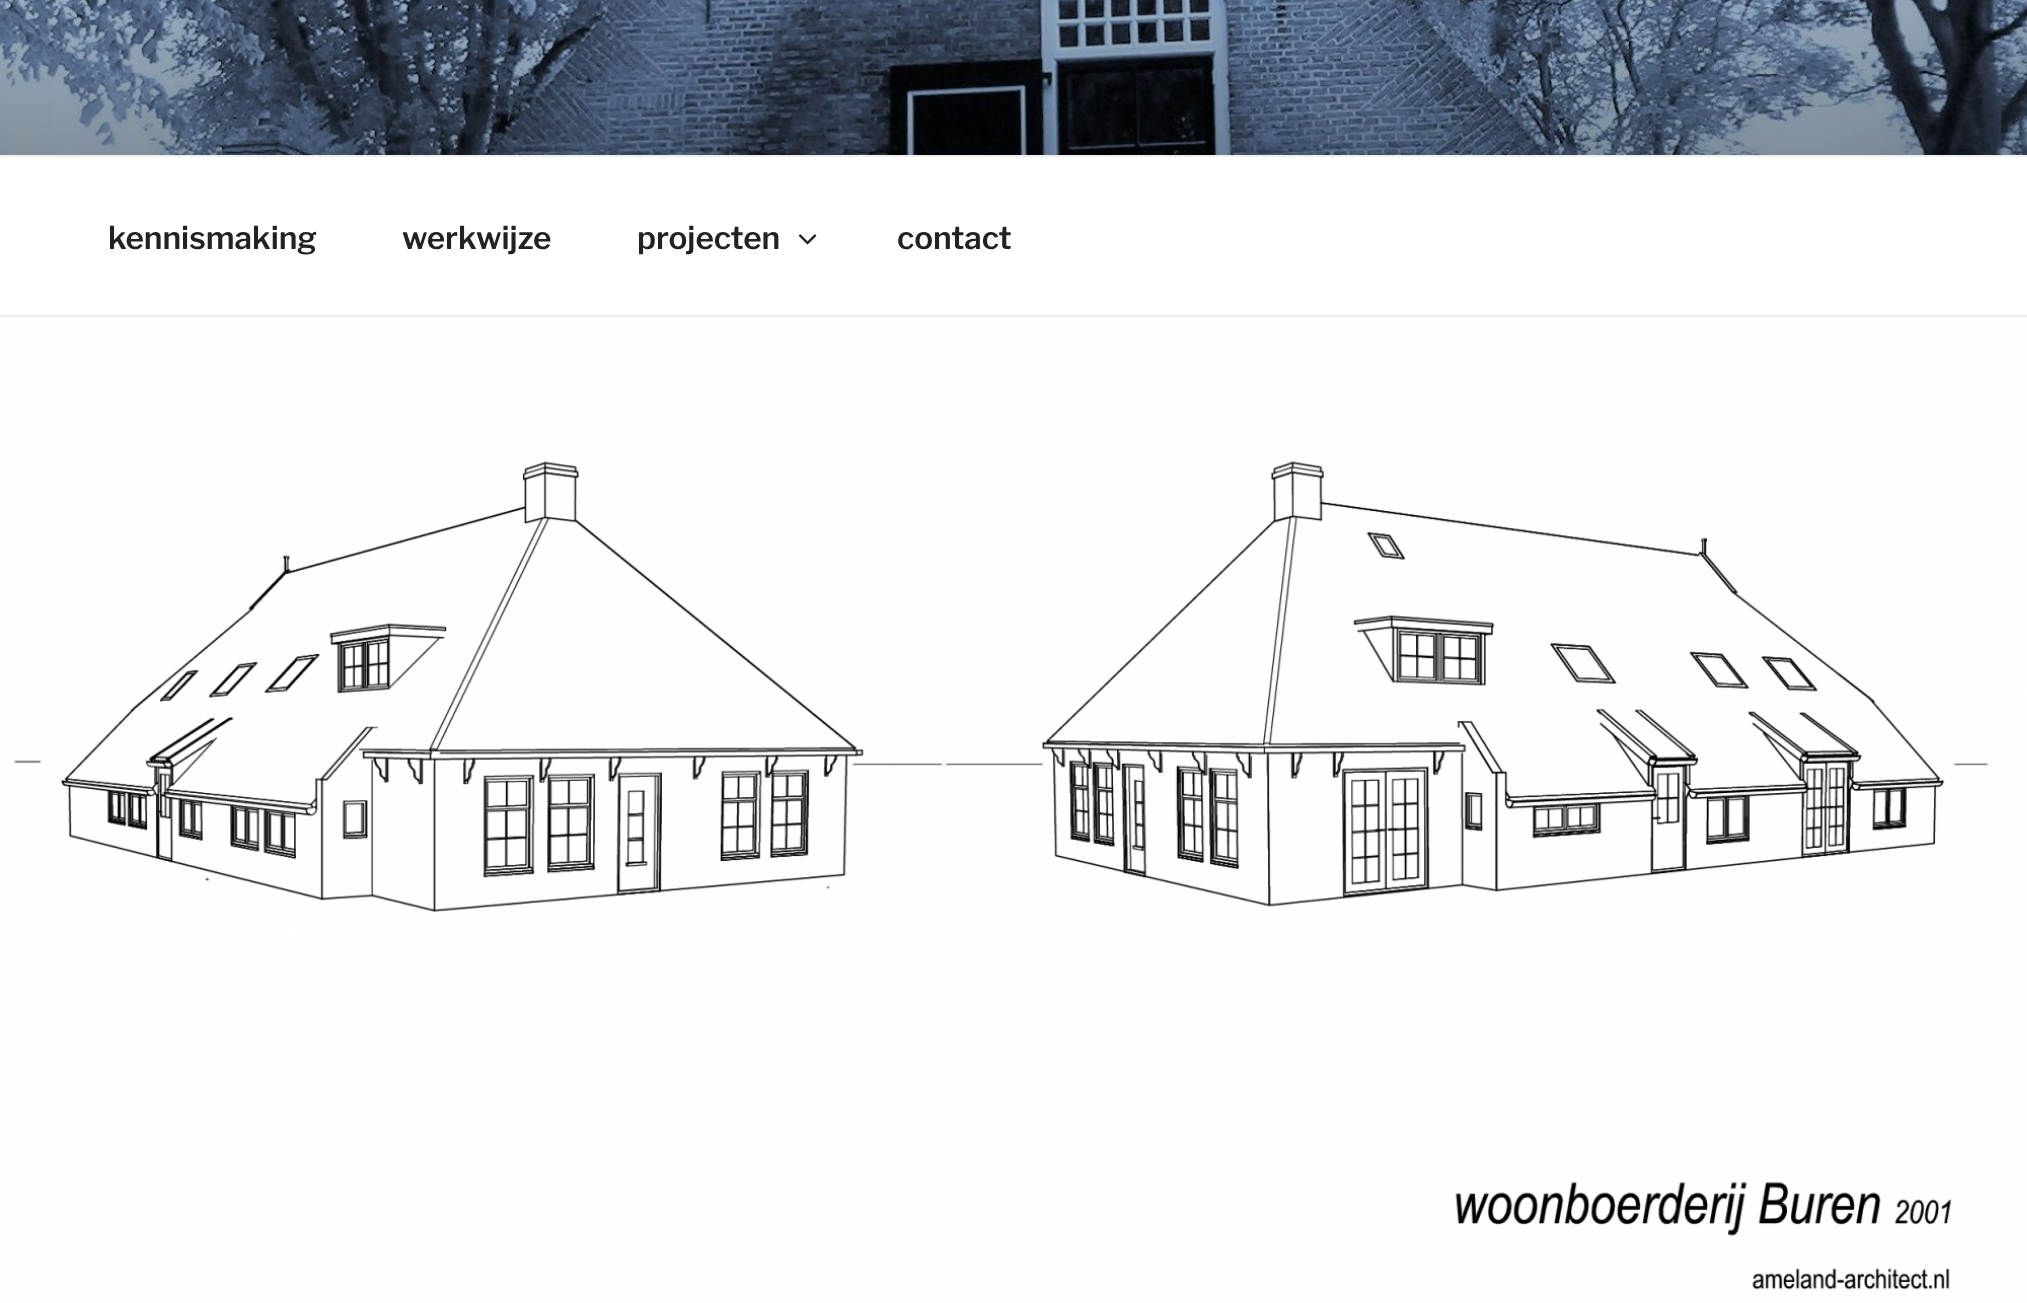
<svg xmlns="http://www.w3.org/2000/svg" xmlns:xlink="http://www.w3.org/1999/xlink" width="2027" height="1303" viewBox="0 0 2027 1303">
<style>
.cls-1{font:100 31.5px Libre Franklin;fill:#222222}
</style>
<rect width="100%" height="100%" fill="#fafafa"/>
<image xlink:href="image0.png" x="0" y="0" width="2027" height="155"/>
<rect fill="#ffffff" x="0" y="157" width="2027" height="158"/>
<rect fill="#eeeeee" x="0" y="155" width="2027" height="2"/>
<rect fill="#eeeeee" x="0" y="315" width="2027" height="2"/>
<image xlink:href="image1.png" x="798" y="234" width="19" height="11"/>
<image xlink:href="image2.png" x="0" y="318" width="2027" height="985"/>
<text class="cls-1" x="108" y="249">kennismaking</text>
<text class="cls-1" x="402" y="249">werkwijze</text>
<text class="cls-1" x="637" y="249">projecten</text>
<text class="cls-1" x="897" y="249">contact</text>
</svg>
